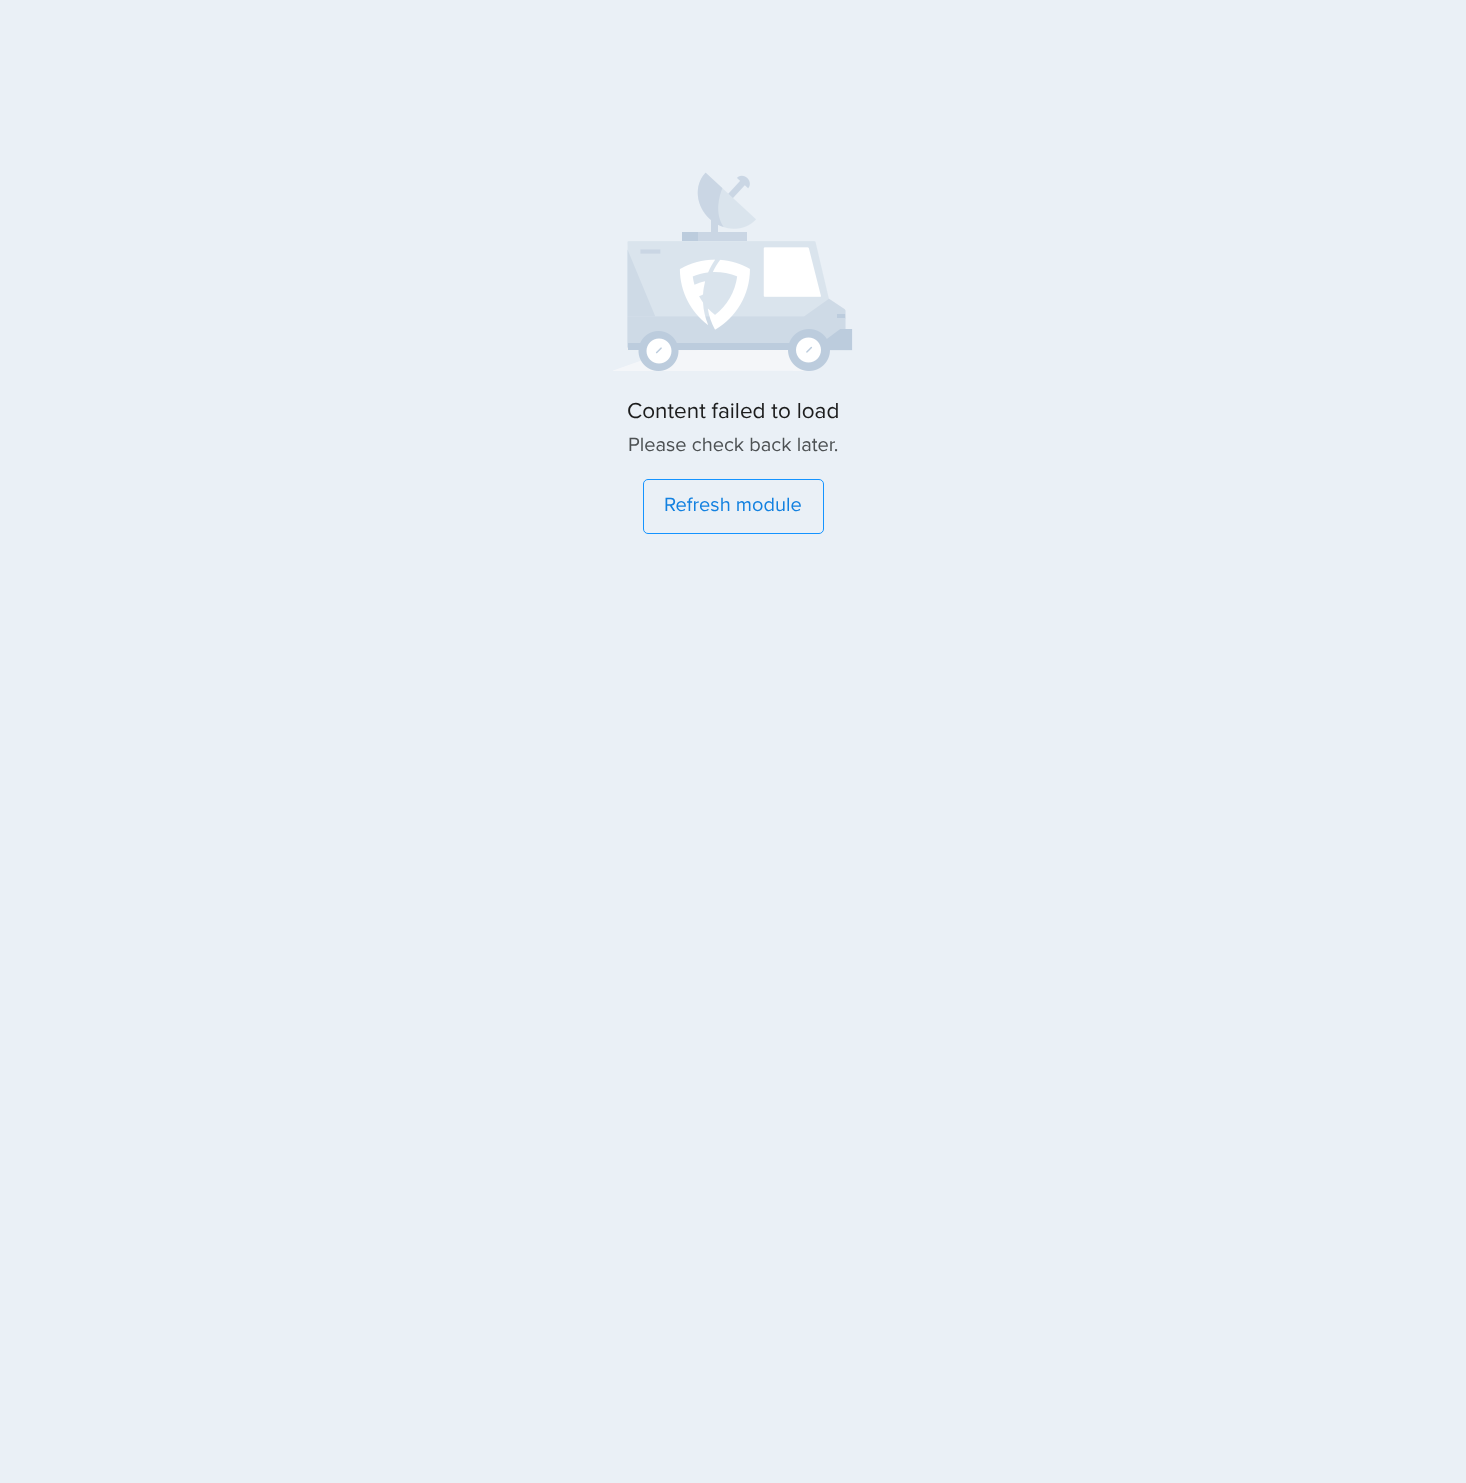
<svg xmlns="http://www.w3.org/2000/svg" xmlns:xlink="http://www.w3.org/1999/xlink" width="1466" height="1483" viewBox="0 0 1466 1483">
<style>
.cls-1{font:22.5px Proxima Nova;fill:#1c1d1d}
.cls-2{font:20px Proxima Nova;fill:#4d5153}
.cls-3{font:20px Proxima Nova;fill:#1381e0}
</style>
<rect width="100%" height="100%" fill="#eaf0f6"/>
<image xlink:href="image0.png" x="613" y="172" width="240" height="199"/>
<rect fill="none" stroke="#1493ff" x="643.5" y="479.5" width="180" height="54" rx="4.5"/>
<text class="cls-1" x="627" y="418">Content failed to load</text>
<text class="cls-2" x="628" y="451">Please check back later.</text>
<text class="cls-3" x="664" y="511">Refresh module</text>
</svg>
